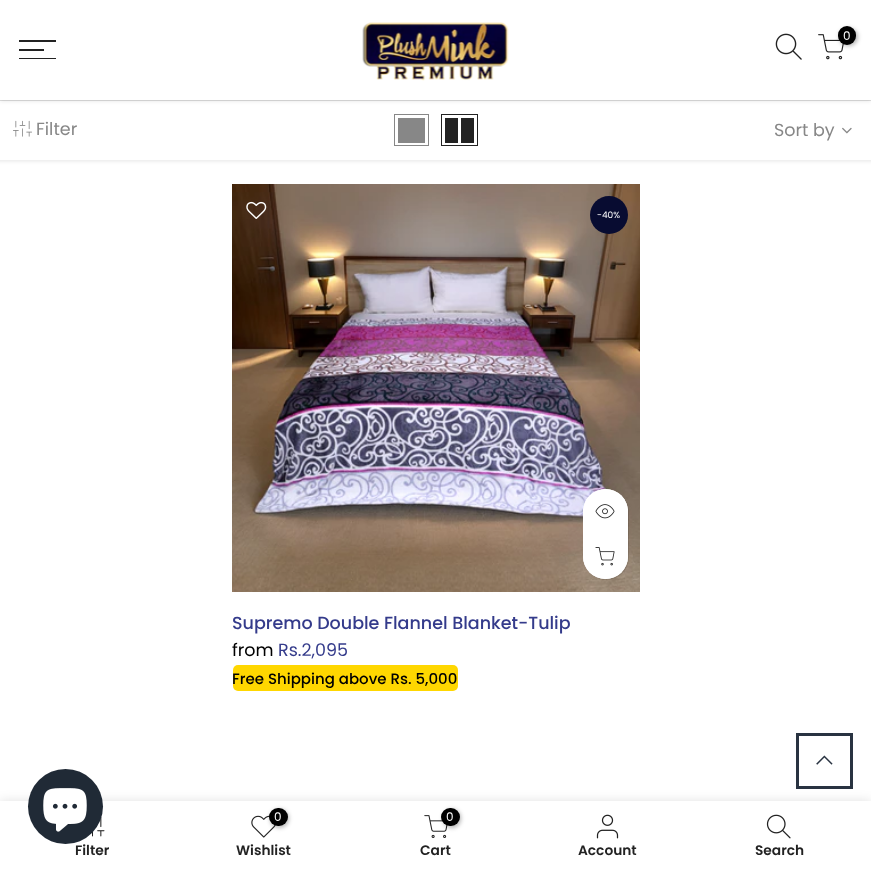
<svg xmlns="http://www.w3.org/2000/svg" xmlns:xlink="http://www.w3.org/1999/xlink" width="871" height="869" viewBox="0 0 871 869">
<style>
.cls-1{font:12px Poppins;fill:#ffffff}
.cls-2{font:17.5px Poppins;fill:#878787}
.cls-3{font:9px Poppins;fill:#ffffff}
.cls-4{font:500 17.5px Poppins;fill:#343b8b}
.cls-5{font:17.5px Poppins;fill:#000000}
.cls-6{font:17.5px Poppins;fill:#343b8b}
.cls-7{font:500 15px Poppins;fill:#000000}
.cls-8{font:600 13.75px Poppins;fill:#222222}
</style>
<rect width="100%" height="100%" fill="#ffffff"/>
<rect fill="#000000" fill-opacity="0.1" filter="blur(2px)" x="-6" y="101" width="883" height="60"/>
<rect fill="#ffffff" x="0" y="101" width="871" height="59"/>
<rect fill="#dedede" x="0" y="100" width="871" height="1"/>
<rect fill="#000000" fill-opacity="0.1" filter="blur(2px)" x="0" y="1" width="871" height="100"/>
<rect fill="#ffffff" x="0" y="0" width="871" height="100"/>
<rect fill="#222222" x="19" y="40" width="37" height="2"/>
<rect fill="#222222" x="19" y="49" width="25" height="2"/>
<rect fill="#222222" x="19" y="58" width="37" height="1"/>
<image xlink:href="image0.png" x="362" y="22" width="147" height="59"/>
<image xlink:href="image1.png" x="775" y="33" width="27" height="27"/>
<image xlink:href="image2.png" x="818" y="34" width="26" height="26"/>
<rect fill="#000000" fill-opacity="0.3" filter="blur(2px)" x="839" y="28" width="19" height="18" rx="9"/>
<rect fill="#000000" x="838" y="26" width="18" height="19" rx="9"/>
<image xlink:href="image3.png" x="13" y="120" width="19" height="17"/>
<rect fill="none" stroke="#878787" x="394.5" y="114.5" width="34" height="31"/>
<rect fill="#878787" x="398" y="118" width="27" height="25"/>
<rect fill="none" stroke="#222222" x="441.5" y="114.5" width="36" height="31"/>
<rect fill="#222222" x="461" y="118" width="13" height="25"/>
<rect fill="#222222" x="445" y="118" width="13" height="25"/>
<image xlink:href="image4.png" x="842" y="127" width="10" height="7"/>
<image xlink:href="image5.png" x="232" y="184" width="408" height="408"/>
<image xlink:href="image6.png" x="246" y="201" width="21" height="18"/>
<circle fill="#080c31" cx="609" cy="215" r="19"/>
<rect fill="#000000" fill-opacity="0.1" filter="blur(0.5px)" x="584" y="490" width="45" height="90" rx="22.5"/>
<rect fill="#ffffff" x="583" y="489" width="45" height="90" rx="22.5"/>
<circle fill="#ffffff" cx="605.5" cy="511.5" r="22.5"/>
<image xlink:href="image7.png" x="595" y="504" width="20" height="15"/>
<path fill="none" stroke="#ffffff" stroke-width="1.2" d="M597.5 503.5C600 501 603.5 500 607 501C619.5 503.5 617.5 522 605 522C602 522 599.5 520.5 597.5 519M597.5 519C593.5 514.5 593.5 508 597.5 503.5"/>
<circle fill="#ffffff" cx="605.5" cy="556.5" r="22.5"/>
<image xlink:href="image8.png" x="595" y="547" width="20" height="19"/>
<rect fill="#ffd700" x="233" y="665" width="225" height="26" rx="5"/>
<rect fill="none" stroke="#293341" stroke-width="3" x="797.5" y="734.5" width="54" height="53"/>
<image xlink:href="image9.png" x="816" y="755" width="17" height="10"/>
<rect fill="#000000" fill-opacity="0.12" filter="blur(5.5px)" x="0" y="801" width="871" height="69"/>
<rect fill="#ffffff" x="0" y="801" width="871" height="68"/>
<image xlink:href="image11.png" x="92" y="816" width="13" height="21"/>
<circle fill="#202a36" cx="65.5" cy="806.5" r="37.5"/>
<image xlink:href="image10.png" x="43" y="788" width="44" height="44"/>
<image xlink:href="image12.png" x="251" y="815" width="25" height="23"/>
<rect fill="#000000" fill-opacity="0.3" filter="blur(2px)" x="270" y="809" width="19" height="19" rx="9.5"/>
<rect fill="#000000" x="269" y="808" width="19" height="18" rx="9"/>
<image xlink:href="image13.png" x="424" y="815" width="24" height="23"/>
<rect fill="#000000" fill-opacity="0.3" filter="blur(2px)" x="443" y="809" width="18" height="19" rx="9"/>
<rect fill="#000000" x="441" y="808" width="19" height="18" rx="9"/>
<image xlink:href="image14.png" x="596" y="814" width="23" height="25"/>
<image xlink:href="image15.png" x="766" y="814" width="25" height="25"/>
<text class="cls-1" x="843" y="40">0</text>
<text class="cls-2" x="36" y="135">Filter</text>
<text class="cls-2" x="774" y="136">Sort by</text>
<text class="cls-3" x="597" y="218">-40%</text>
<text class="cls-4" x="232" y="629">Supremo Double Flannel Blanket-Tulip</text>
<text class="cls-5" x="232" y="656">from</text>
<text class="cls-6" x="278" y="656">Rs.2,095</text>
<text class="cls-7" x="232" y="684">Free Shipping above Rs. 5,000</text>
<text class="cls-8" x="75" y="855">Filter</text>
<text class="cls-1" x="274" y="821">0</text>
<text class="cls-8" x="236" y="855">Wishlist</text>
<text class="cls-1" x="446" y="821">0</text>
<text class="cls-8" x="420" y="855">Cart</text>
<text class="cls-8" x="578" y="855">Account</text>
<text class="cls-8" x="755" y="855">Search</text>
</svg>
